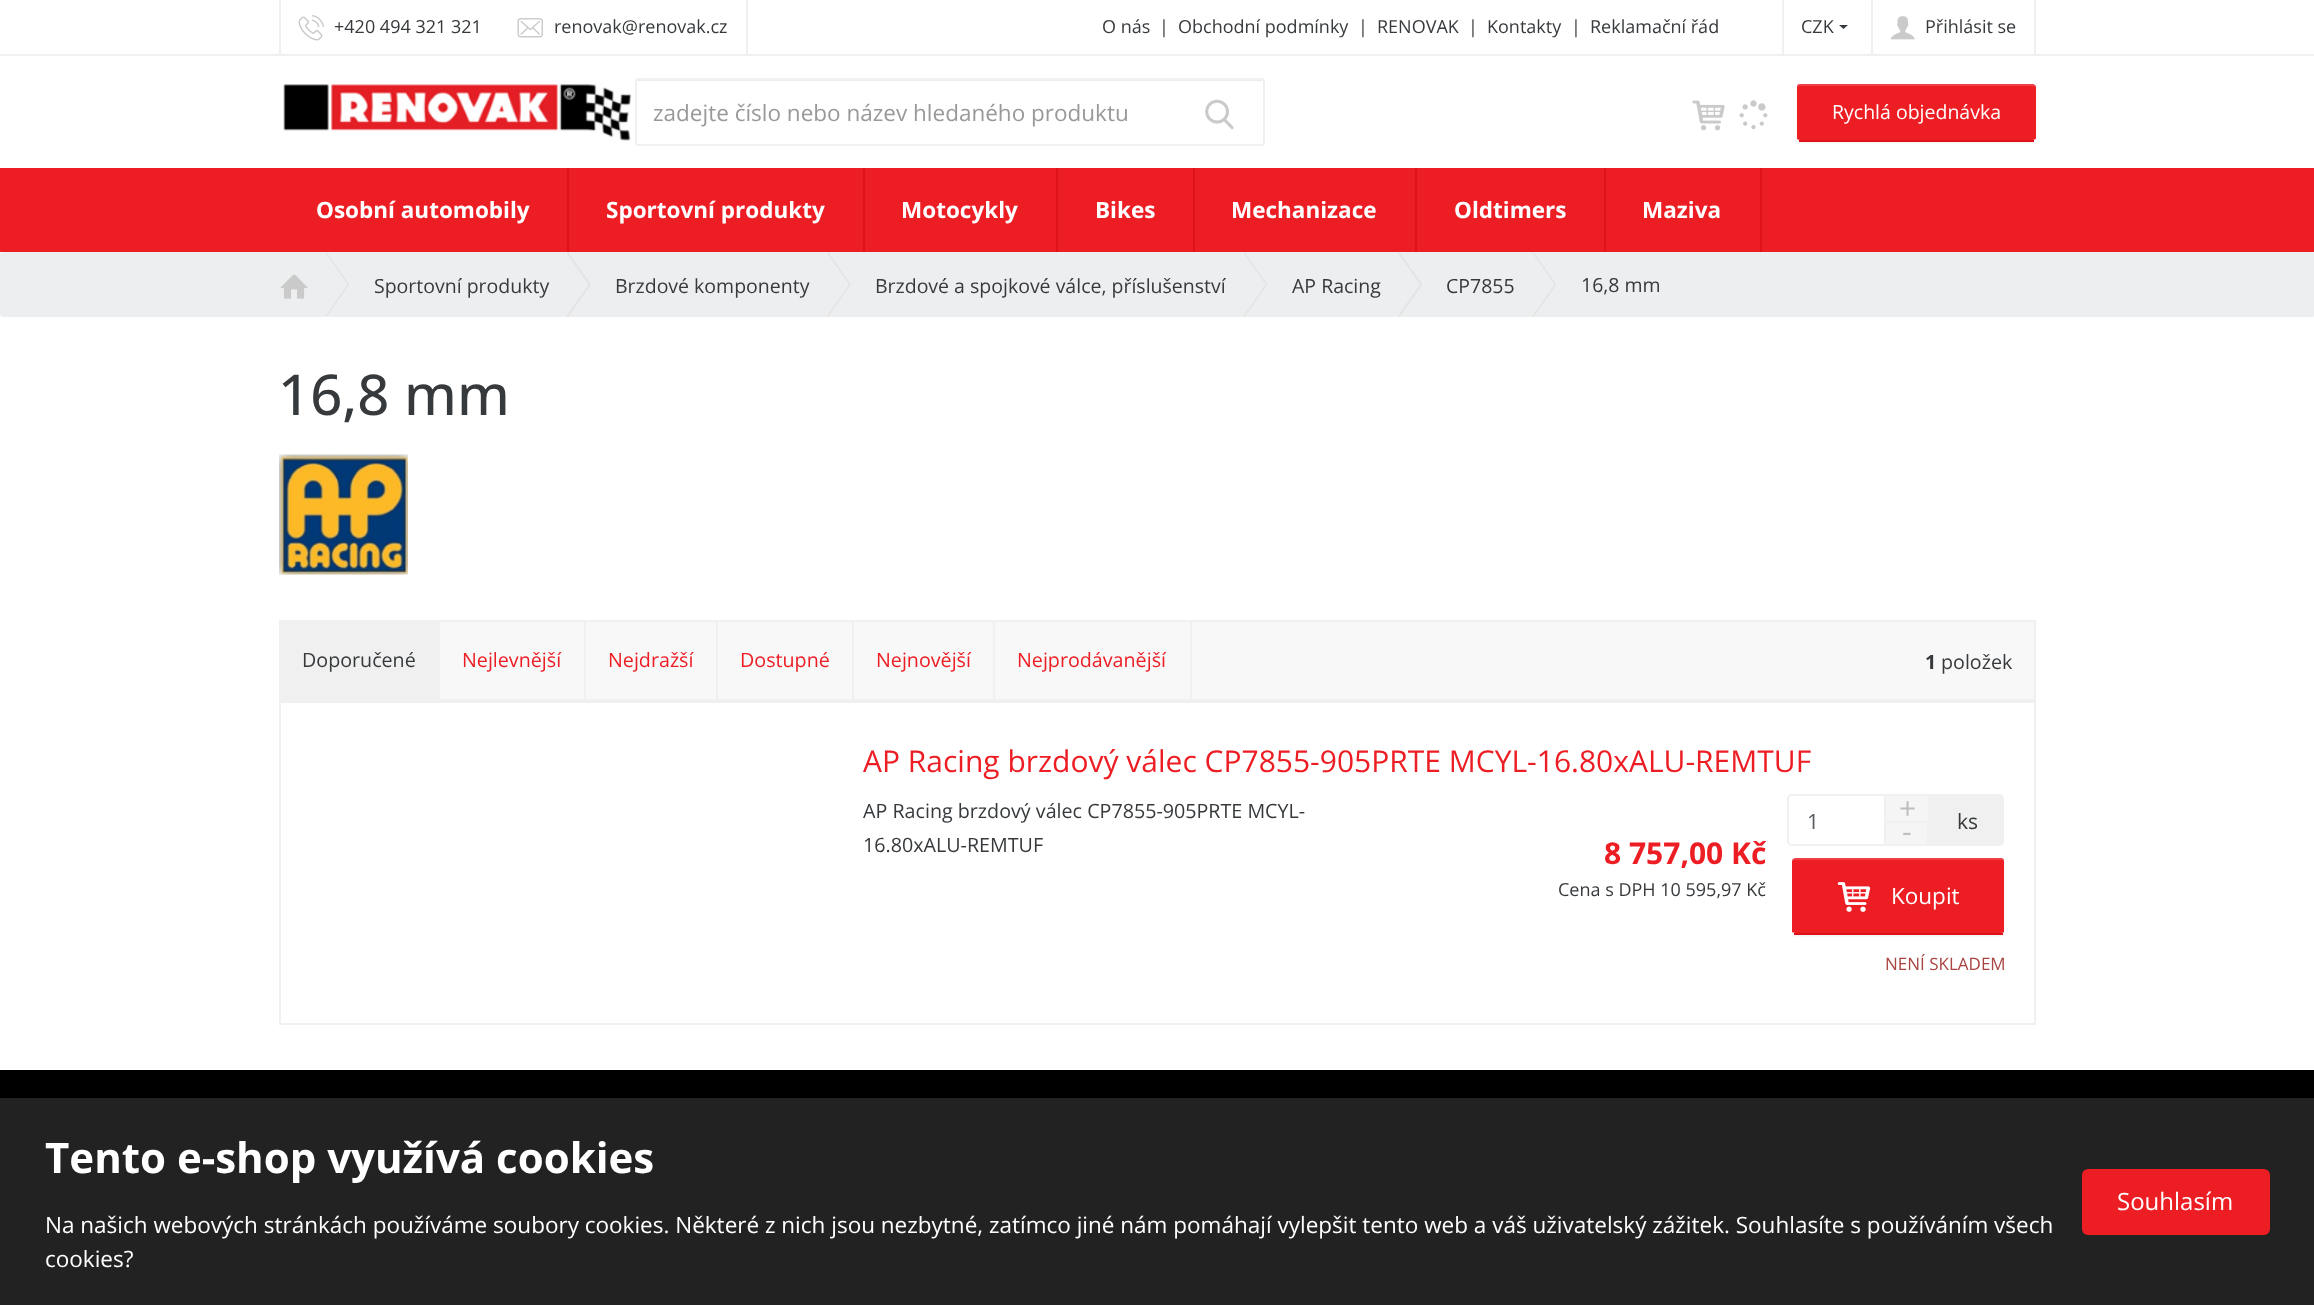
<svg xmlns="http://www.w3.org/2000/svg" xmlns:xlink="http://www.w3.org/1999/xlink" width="2314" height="1305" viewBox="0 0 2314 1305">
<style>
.cls-1{font:18px Open Sans;fill:#373a3c}
.cls-2{font:22.5px Open Sans;fill:#999999}
.cls-3{font:19.5px Open Sans;fill:#ffffff}
.cls-4{font:bold 22.5px Open Sans;fill:#ffffff}
.cls-5{font:19.5px Open Sans;fill:#373a3c}
.cls-6{font:500 56.25px Open Sans;fill:#373a3c}
.cls-7{font:19.7px Open Sans;fill:#373a3c}
.cls-8{font:19.7px Open Sans;fill:#ed1d24}
.cls-9{font:bold 19.7px Open Sans;fill:#373a3c}
.cls-10{font:30px Open Sans;fill:#ed1d24}
.cls-11{font:bold 30px Open Sans;fill:#ed1d24}
.cls-12{font:30px Open Sans;fill:#bebebe}
.cls-13{font:21px Open Sans;fill:#55595c}
.cls-14{font:21px Open Sans;fill:#373a3c}
.cls-15{font:22.5px Open Sans;fill:#ffffff}
.cls-16{font:17px Open Sans;fill:#a94442}
.cls-17{font:bold 42px Open Sans;fill:#ffffff}
.cls-18{font:24px Open Sans;fill:#ffffff}
</style>
<rect width="100%" height="100%" fill="#ffffff"/>
<rect fill="#f0f0f0" x="0" y="54" width="2314" height="2"/>
<rect fill="#f0f0f0" x="2034" y="0" width="2" height="54"/>
<rect fill="#f0f0f0" x="279" y="0" width="2" height="54"/>
<rect fill="#f0f0f0" x="746" y="0" width="2" height="54"/>
<image xlink:href="image0.png" x="298" y="15" width="26" height="26"/>
<image xlink:href="image1.png" x="517" y="18" width="26" height="20"/>
<rect fill="#f0f0f0" x="1782" y="0" width="2" height="54"/>
<path fill="#373a3c" d="M1839 25H1848L1843.5 29Z"/>
<rect fill="#f0f0f0" x="1871" y="0" width="2" height="54"/>
<image xlink:href="image2.png" x="1890" y="16" width="25" height="24"/>
<image xlink:href="image3.png" x="283" y="84" width="349" height="57"/>
<path fill="#ececec" d="M638 81H1262L1263 82L1262 80H950H638L636 81V82Z"/>
<rect fill="none" stroke="#f0f0f0" stroke-width="2" x="636" y="79" width="628" height="66" rx="2"/>
<image xlink:href="image4.png" x="1205" y="99" width="29" height="31"/>
<image xlink:href="image5.png" x="1692" y="100" width="33" height="31"/>
<image xlink:href="image6.png" x="1739" y="100" width="29" height="30"/>
<rect fill="#000000" fill-opacity="0.07" filter="blur(1px)" x="1797" y="86" width="239" height="57" rx="3"/>
<path fill="#ed1d24" d="M1800 84H2032C2034 84 2036 85 2036 87V138C2036 139 2034 140 2032 140H1800C1798 140 1797 139 1797 138V87C1797 85 1798 84 1800 84Z"/>
<path fill="#ffffff" fill-opacity="0.15" d="M1800 86H2032L2036 87C2036 85 2034 84 2032 84H1800C1798 84 1797 86 1797 88C1797 87 1798 86 1800 86Z"/>
<rect fill="#df1219" x="1799" y="140" width="235" height="2"/>
<rect fill="#ed1d24" x="0" y="168" width="2314" height="84"/>
<rect fill="#df1219" x="567" y="168" width="2" height="84"/>
<rect fill="#df1219" x="863" y="168" width="2" height="84"/>
<rect fill="#df1219" x="1056" y="168" width="2" height="84"/>
<rect fill="#df1219" x="1193" y="168" width="2" height="84"/>
<rect fill="#df1219" x="1415" y="168" width="2" height="84"/>
<rect fill="#df1219" x="1604" y="168" width="2" height="84"/>
<rect fill="#df1219" x="1760" y="168" width="2" height="84"/>
<rect fill="#eceeef" x="0" y="252" width="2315" height="65" rx="3"/>
<image xlink:href="image7.png" x="280" y="274" width="28" height="25"/>
<path fill="#e3e3e3" d="M326 253.5L327 252.5L349 284L348 285Z"/>
<path fill="#e3e3e3" d="M348 284L349 285L327 316.5L326 315.5Z"/>
<path fill="#e3e3e3" d="M566.5 253L568 252L590.5 284L589 285Z"/>
<path fill="#e3e3e3" d="M589 284L590.5 285L568 317L566.5 316Z"/>
<path fill="#e3e3e3" d="M827 253L828 252L850.5 284L849.5 285Z"/>
<path fill="#e3e3e3" d="M849.5 284L850.5 285L828 317L827 316Z"/>
<path fill="#e3e3e3" d="M1243.5 253L1244.5 252L1267 284L1266 285Z"/>
<path fill="#e3e3e3" d="M1266 284L1267 285L1244.5 317L1243.5 316Z"/>
<path fill="#e3e3e3" d="M1398 253L1399.5 252L1422 284L1420.5 285Z"/>
<path fill="#e3e3e3" d="M1420.5 284L1422 285L1399.5 317L1398 316Z"/>
<path fill="#e3e3e3" d="M1532.5 253L1533.5 252L1556 284L1555 285Z"/>
<path fill="#e3e3e3" d="M1555 284L1556 285L1533.5 317L1532.5 316Z"/>
<image xlink:href="image8.png" x="279" y="454" width="129" height="121"/>
<rect fill="#f8f8f8" x="440" y="622" width="1594" height="77"/>
<rect fill="none" stroke="#f0f0f0" stroke-width="2" x="280" y="621" width="1755" height="79"/>
<rect fill="#f0f0f0" x="281" y="622" width="159" height="77"/>
<rect fill="#f0f0f0" x="584" y="621" width="2" height="78"/>
<rect fill="#f0f0f0" x="716" y="621" width="2" height="78"/>
<rect fill="#f0f0f0" x="852" y="621" width="2" height="78"/>
<rect fill="#f0f0f0" x="993" y="621" width="2" height="78"/>
<rect fill="#f0f0f0" x="1190" y="621" width="2" height="78"/>
<rect fill="#f0f0f0" x="279" y="701" width="1757" height="2"/>
<rect fill="#f0f0f0" x="279" y="701" width="2" height="324"/>
<rect fill="#f0f0f0" x="2034" y="702" width="2" height="323"/>
<rect fill="#f0f0f0" x="281" y="1023" width="1753" height="2"/>
<rect fill="none" stroke="#f0f0f0" stroke-width="2" x="1788" y="795" width="215" height="50" rx="4"/>
<rect fill="#f5f5f5" x="1886" y="796" width="42" height="25"/>
<rect fill="#f0f0f0" x="1928" y="794" width="1" height="27"/>
<rect fill="#f0f0f0" x="1884" y="794" width="2" height="27"/>
<path fill="#f0f0f0" d="M1929 794H1998C2001.5 794 2004 796.5 2004 800V840C2004 843.5 2001.5 846 1998 846H1929Z"/>
<rect fill="#f5f5f5" stroke="#f0f0f0" stroke-width="2" x="1885" y="822" width="43" height="23"/>
<rect fill="#000000" fill-opacity="0.07" filter="blur(1px)" x="1793" y="860" width="211" height="76" rx="3"/>
<path fill="#ed1d24" d="M1796 858H2001C2003 858 2004 859 2004 861V932C2004 932 2003 933 2001 933H1796C1794 933 1792 932 1792 932V861C1792 859 1794 858 1796 858Z"/>
<path fill="#ffffff" fill-opacity="0.15" d="M1796 860H2001C2003 860 2004 861 2004 862V861C2004 859 2003 858 2001 858H1796C1794 858 1792 859 1792 861Z"/>
<rect fill="#df1219" x="1794" y="933" width="209" height="2"/>
<image xlink:href="image9.png" x="1837" y="882" width="34" height="30"/>
<rect fill="#000000" x="0" y="1070" width="2314" height="28"/>
<rect fill="#222222" x="0" y="1098" width="2314" height="207"/>
<rect fill="#ed1d24" x="2082" y="1169" width="188" height="66" rx="6"/>
<text class="cls-1" x="334" y="33">+420 494 321 321</text>
<text class="cls-1" x="554" y="33">renovak@renovak.cz</text>
<text class="cls-1" x="1102" y="33">O nás</text>
<text class="cls-1" x="1159" y="33">|</text>
<text class="cls-1" x="1178" y="33">Obchodní podmínky</text>
<text class="cls-1" x="1358" y="33">|</text>
<text class="cls-1" x="1377" y="33">RENOVAK</text>
<text class="cls-1" x="1468" y="33">|</text>
<text class="cls-1" x="1487" y="33">Kontakty</text>
<text class="cls-1" x="1571" y="33">|</text>
<text class="cls-1" x="1590" y="33">Reklamační řád</text>
<text class="cls-1" x="1801" y="33">CZK</text>
<text class="cls-1" x="1925" y="33">Přihlásit se</text>
<text class="cls-2" x="653" y="121">zadejte číslo nebo název hledaného produktu</text>
<text class="cls-3" x="1832" y="119">Rychlá objednávka</text>
<text class="cls-4" x="316" y="218">Osobní automobily</text>
<text class="cls-4" x="606" y="218">Sportovní produkty</text>
<text class="cls-4" x="901" y="218">Motocykly</text>
<text class="cls-4" x="1095" y="218">Bikes</text>
<text class="cls-4" x="1231" y="218">Mechanizace</text>
<text class="cls-4" x="1454" y="218">Oldtimers</text>
<text class="cls-4" x="1642" y="218">Maziva</text>
<text class="cls-5" x="374" y="293">Sportovní produkty</text>
<text class="cls-5" x="615" y="293">Brzdové komponenty</text>
<text class="cls-5" x="875" y="293">Brzdové a spojkové válce, příslušenství</text>
<text class="cls-5" x="1292" y="293">AP Racing</text>
<text class="cls-5" x="1446" y="293">CP7855</text>
<text class="cls-5" x="1581" y="292">16,8 mm</text>
<text class="cls-6" x="278" y="415">16,8 mm</text>
<text class="cls-7" x="302" y="667">Doporučené</text>
<text class="cls-8" x="462" y="667">Nejlevnější</text>
<text class="cls-8" x="608" y="667">Nejdražší</text>
<text class="cls-8" x="740" y="667">Dostupné</text>
<text class="cls-8" x="876" y="667">Nejnovější</text>
<text class="cls-8" x="1017" y="667">Nejprodávanější</text>
<text class="cls-9" x="1925" y="669">1</text>
<text class="cls-7" x="1941" y="669">položek</text>
<text class="cls-10" x="863" y="772">AP Racing brzdový válec CP7855-905PRTE MCYL-16.80xALU-REMTUF</text>
<text class="cls-7"><tspan x="863" y="818">AP Racing brzdový válec CP7855-905PRTE MCYL-</tspan><tspan x="863" y="852">16.80xALU-REMTUF</tspan></text>
<text class="cls-11" x="1604" y="864">8 757,00 Kč</text>
<text class="cls-1" x="1558" y="896">Cena s DPH 10 595,97 Kč</text>
<text class="cls-12" x="1899" y="819">+</text>
<text class="cls-13" x="1807" y="829">1</text>
<text class="cls-14" x="1957" y="829">ks</text>
<text class="cls-12" x="1902" y="842">-</text>
<text class="cls-15" x="1891" y="904">Koupit</text>
<text class="cls-16" x="1885" y="970">NENÍ SKLADEM</text>
<text class="cls-17" x="45" y="1173">Tento e-shop využívá cookies</text>
<text class="cls-15"><tspan x="45" y="1233">Na našich webových stránkách používáme soubory cookies. Některé z nich jsou nezbytné, zatímco jiné nám pomáhají vylepšit tento web a váš uživatelský zážitek. Souhlasíte s používáním všech</tspan><tspan x="45" y="1267">cookies?</tspan></text>
<text class="cls-18" x="2117" y="1210">Souhlasím</text>
</svg>
